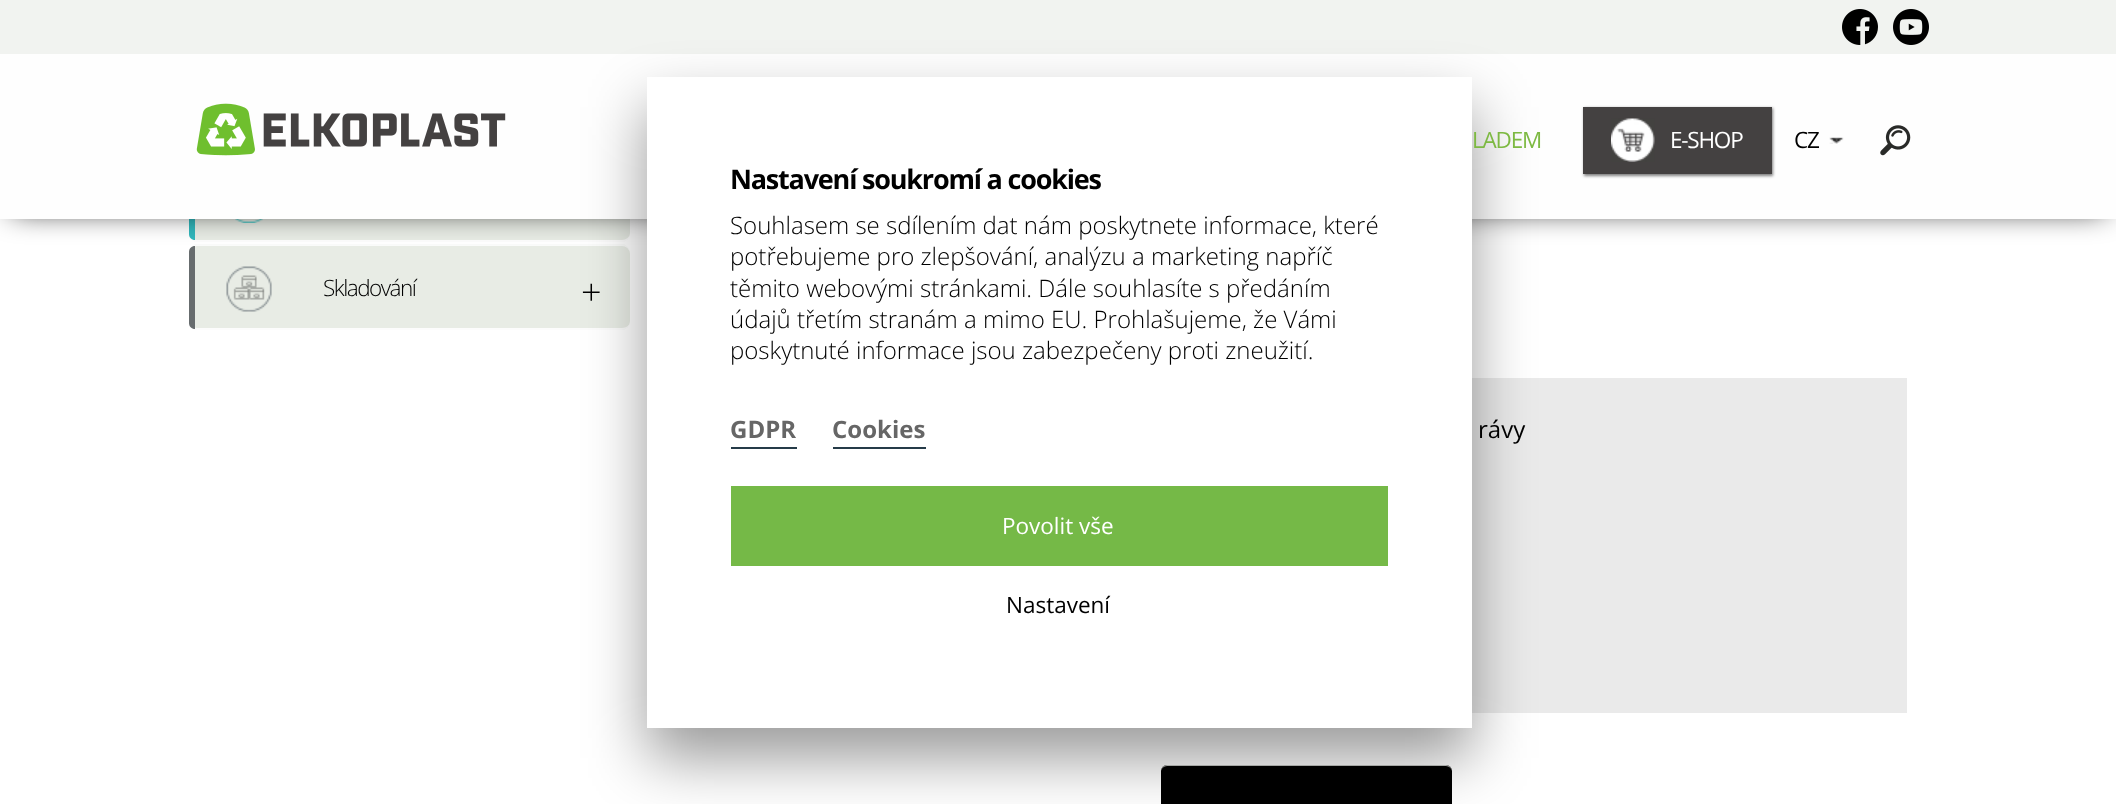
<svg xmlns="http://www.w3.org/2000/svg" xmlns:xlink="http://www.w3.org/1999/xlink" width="2116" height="804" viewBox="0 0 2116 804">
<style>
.cls-1{font:22.5px Open Sans;letter-spacing:-1.2px;fill:#7db942}
.cls-2{font:22.5px Open Sans;letter-spacing:-1.2px;fill:#ffffff}
.cls-3{font:22.5px Open Sans;letter-spacing:-1.2px;fill:#000000}
.cls-4{font:300 22.5px Open Sans;letter-spacing:-1.5px;fill:#000000}
.cls-5{font:300 36px Open Sans;letter-spacing:-1.5px;fill:#000000}
.cls-6{font:24px Open Sans;fill:#000000}
.cls-7{font:bold 27px Open Sans;letter-spacing:-1.2px;fill:#000000}
.cls-8{font:300 24px Open Sans;fill:#000000}
.cls-9{font:bold 24px Open Sans;fill:#666666}
.cls-10{font:22.5px Open Sans;fill:#ffffff}
.cls-11{font:22.5px Open Sans;fill:#000000}
</style>
<rect width="100%" height="100%" fill="#ffffff"/>
<rect fill="#e8ece5" x="189" y="156" width="441" height="86" rx="9"/>
<path fill="#fcfcfc" d="M624 242C628 240 630 237 630 233C630 237 626 240 622 240H197C193 240 189 237 189 233C189 237 191 240 195 242Z"/>
<image xlink:href="image6.png" x="235" y="219" width="28" height="4"/>
<path fill="#31b7bc" d="M195 158V240C191.5 240 189 237.5 189 234V164C189 160.5 191.5 158 195 158Z"/>
<rect fill="#e8ece5" x="189" y="245" width="441" height="85" rx="9"/>
<path fill="#fafbfa" d="M197 246C193 246 189 249 189 253C189 249 191 246 195 244H624C628 246 630 249 630 253C630 249 626 246 622 246Z"/>
<path fill="#fcfcfc" d="M622 330C626 330 630 326 630 322C630 325 626 328 622 328H197C193 328 189 325 189 322C189 326 193 330 197 330Z"/>
<path fill="#676c6e" d="M195 246V329C191.5 329 189 326.5 189 323V252C189 248.5 191.5 246 195 246Z"/>
<rect fill="#000000" filter="blur(15px)" x="12" y="68" width="2093" height="141"/>
<rect fill="#f1f3f0" x="0" y="0" width="2116" height="54"/>
<image xlink:href="image0.png" x="1842" y="9" width="36" height="36"/>
<image xlink:href="image1.png" x="1893" y="9" width="36" height="36"/>
<rect fill="#fefefe" x="0" y="54" width="2116" height="165"/>
<image xlink:href="image2.png" x="196" y="103" width="310" height="53"/>
<rect fill="#000000" fill-opacity="0.5" filter="blur(1.5px)" x="1584" y="108" width="189" height="68"/>
<rect fill="#444141" x="1583" y="107" width="189" height="67"/>
<image xlink:href="image3.png" x="1611" y="118" width="44" height="44"/>
<image xlink:href="image4.png" x="1829" y="137" width="15" height="7"/>
<image xlink:href="image5.png" x="1880" y="125" width="31" height="31"/>
<image xlink:href="image7.png" x="226" y="266" width="46" height="46"/>
<rect fill="#eaeaea" x="1472" y="378" width="435" height="335"/>
<rect fill="#000000" x="1161" y="765" width="291" height="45" rx="6"/>
<path fill="#c5c7c4" d="M1167 765C1164 765 1161 768 1161 771C1161 769 1164 766 1167 766H1446C1449 766 1452 769 1452 771C1452 768 1449 765 1446 765Z"/>
<rect fill="#000000" fill-opacity="0.4" filter="blur(30px)" x="647" y="107" width="825" height="651"/>
<rect fill="#ffffff" x="647" y="77" width="825" height="651"/>
<rect fill="#253b48" x="731" y="447" width="66" height="2"/>
<rect fill="#253b48" x="833" y="447" width="93" height="2"/>
<rect fill="#75b947" x="731" y="486" width="657" height="80"/>
<text class="cls-1" x="1472" y="148">LADEM</text>
<text class="cls-2" x="1670" y="148">E-SHOP</text>
<text class="cls-3" x="1794" y="148">CZ</text>
<text class="cls-4" x="323" y="296">Skladování</text>
<text class="cls-5" x="581" y="305">+</text>
<text class="cls-6" x="1478" y="438">rávy</text>
<text class="cls-7" x="730" y="189">Nastavení soukromí a cookies</text>
<text class="cls-8"><tspan x="730" y="234">Souhlasem se sdílením dat nám poskytnete informace, které</tspan><tspan x="730" y="265">potřebujeme pro zlepšování, analýzu a marketing napříč</tspan><tspan x="730" y="297">těmito webovými stránkami. Dále souhlasíte s předáním</tspan><tspan x="730" y="328">údajů třetím stranám a mimo EU. Prohlašujeme, že Vámi</tspan><tspan x="730" y="359">poskytnuté informace jsou zabezpečeny proti zneužití.</tspan></text>
<text class="cls-9" x="730" y="438">GDPR</text>
<text class="cls-9" x="832" y="438">Cookies</text>
<text class="cls-10" x="1002" y="534">Povolit vše</text>
<text class="cls-11" x="1006" y="613">Nastavení</text>
</svg>
